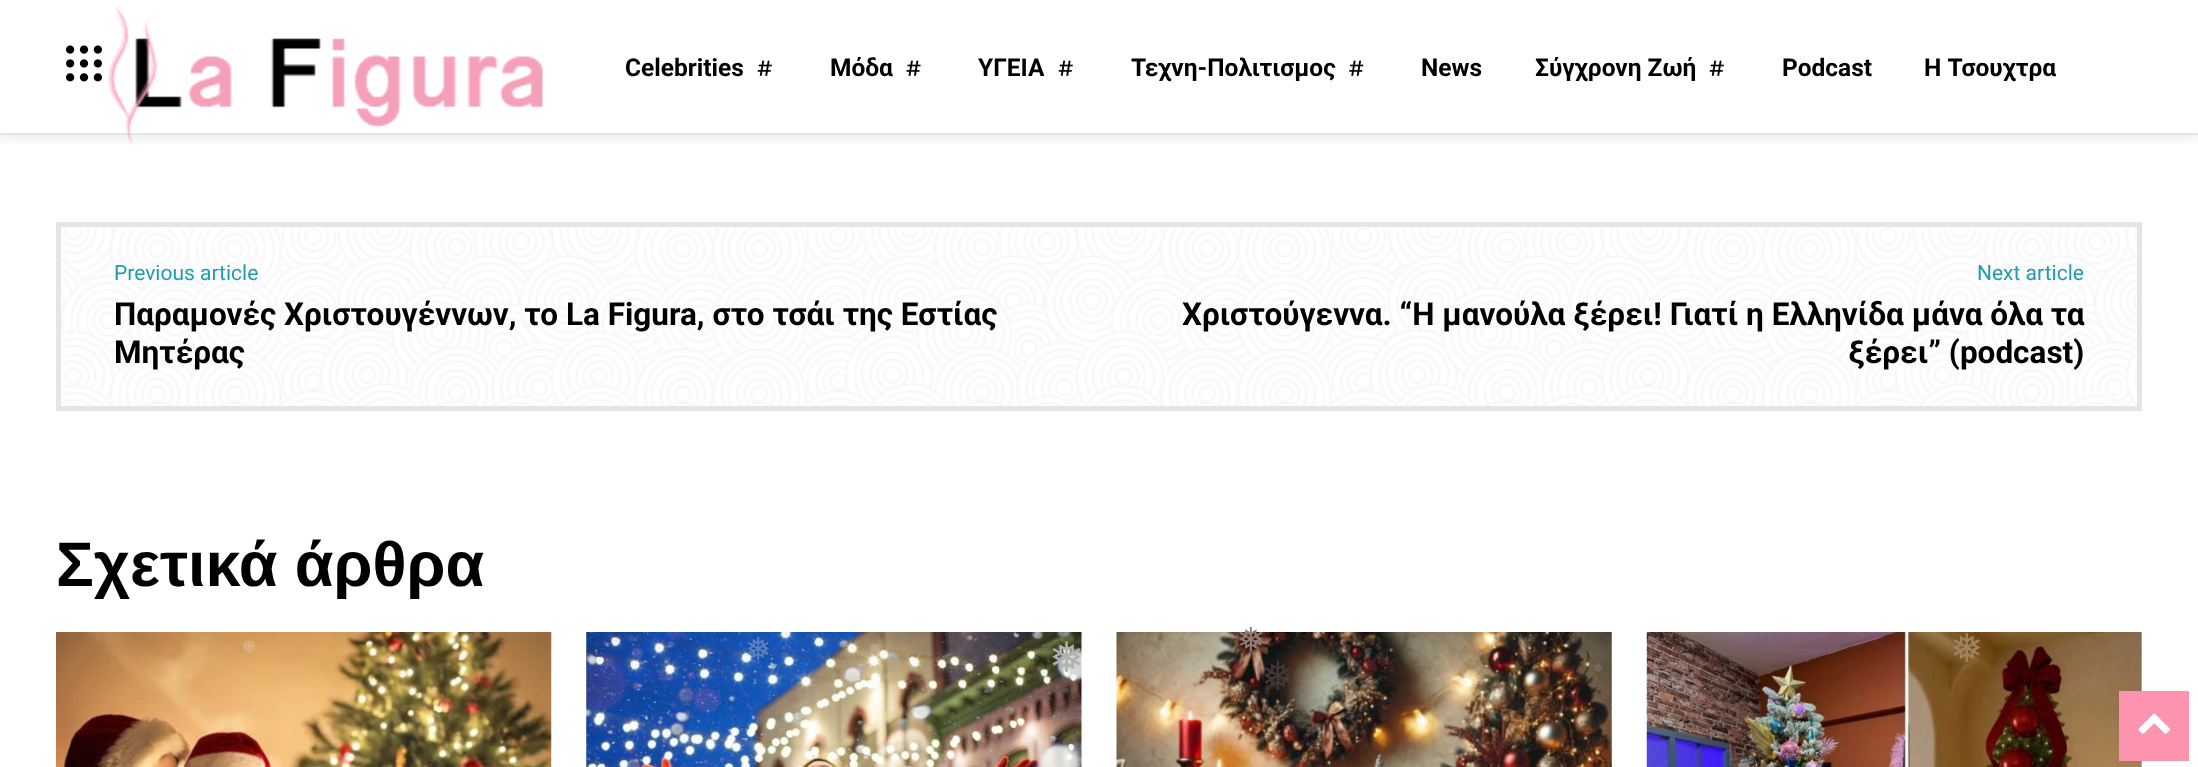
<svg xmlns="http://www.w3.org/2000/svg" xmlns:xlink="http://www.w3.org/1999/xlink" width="2198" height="767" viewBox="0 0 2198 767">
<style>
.cls-1{font:bold 24.5px Roboto;fill:#000000}
.cls-2{font:21px Roboto;fill:#219caf}
.cls-3{font:bold 31.5px Roboto;fill:#000000}
.cls-4{font:bold 63px Liberation Sans;fill:#000000}
.cls-5{font:19px DejaVu Sans;fill:#ddb689}
.cls-6{font:31.5px DejaVu Sans;fill:#5c82c3}
.cls-7{font:14px DejaVu Sans;fill:#c0b096}
.cls-8{font:42px DejaVu Sans;fill:#afb1ac}
.cls-9{font:33px DejaVu Sans;fill:#937f7a}
.cls-10{font:40px DejaVu Sans;fill:#9f8460}
.cls-11{font:40px DejaVu Sans;fill:#403834}
.cls-12{font:12px DejaVu Sans;fill:#7c7162}
.cls-13{font:19px DejaVu Sans;fill:#835533}
</style>
<defs>
<clipPath id="clip1"><rect x="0" y="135" width="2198" height="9"/></clipPath>
</defs>
<rect width="100%" height="100%" fill="#ffffff"/>
<image xlink:href="image0.png" x="66" y="45" width="36" height="37"/>
<rect fill="#e5e5e5" x="0" y="133" width="2198" height="2"/>
<image xlink:href="image1.png" x="108" y="2" width="435" height="142"/>
<g clip-path="url(#clip1)">
<rect fill="#000000" fill-opacity="0.12" filter="blur(9px)" x="0" y="0" width="2198" height="135"/>
</g>
<image xlink:href="image2.png" x="757" y="60" width="15" height="16"/>
<image xlink:href="image3.png" x="906" y="60" width="15" height="16"/>
<image xlink:href="image2.png" x="1058" y="60" width="15" height="16"/>
<image xlink:href="image4.png" x="1349" y="60" width="15" height="16"/>
<image xlink:href="image2.png" x="1709" y="60" width="15" height="16"/>
<rect fill="none" stroke="#e5e5e5" stroke-width="5" x="58.5" y="224.5" width="2081" height="184"/>
<image xlink:href="image5.png" x="61" y="228" width="2076" height="178"/>
<image xlink:href="image6.png" x="56" y="632" width="496" height="135"/>
<image xlink:href="image7.png" x="586" y="632" width="496" height="135"/>
<image xlink:href="image8.png" x="1116" y="632" width="496" height="135"/>
<image xlink:href="image9.png" x="1646" y="632" width="496" height="135"/>
<rect fill="#fc94b0" x="2119" y="691" width="70" height="70"/>
<image xlink:href="image10.png" x="2138" y="713" width="32" height="21"/>
<text class="cls-1" x="625" y="76">Celebrities</text>
<text class="cls-1" x="830" y="76">Μόδα</text>
<text class="cls-1" x="978" y="76">ΥΓΕΙΑ</text>
<text class="cls-1" x="1131" y="76">Τεχνη-Πολιτισμος</text>
<text class="cls-1" x="1421" y="76">News</text>
<text class="cls-1" x="1535" y="76">Σύγχρονη Ζωή</text>
<text class="cls-1" x="1782" y="76">Podcast</text>
<text class="cls-1" x="1924" y="76">Η Τσουχτρα</text>
<text class="cls-2" x="114" y="280">Previous article</text>
<text class="cls-3"><tspan x="114" y="325">Παραμονές Χριστουγέννων, το La Figura, στο τσάι της Εστίας</tspan><tspan x="114" y="363">Μητέρας</tspan></text>
<text class="cls-2" x="1977" y="280">Next article</text>
<text class="cls-3" x="1182" y="325">Χριστούγεννα. “Η μανούλα ξέρει! Γιατί η Ελληνίδα μάνα όλα τα</text>
<text class="cls-3" x="1848" y="363">ξέρει” (podcast)</text>
<text class="cls-4" x="56" y="586">Σχετικά άρθρα</text>
<text class="cls-5" x="241" y="653">❅</text>
<text class="cls-6" x="745" y="660">❅</text>
<text class="cls-7" x="869" y="653">❅</text>
<text class="cls-8" x="1049" y="672">❅</text>
<text class="cls-9" x="1237" y="651">❅</text>
<text class="cls-10" x="1950" y="662">❅</text>
<text class="cls-11" x="1261" y="690">❅</text>
<text class="cls-12" x="1593" y="672">❅</text>
<text class="cls-13" x="1525" y="698">❅</text>
</svg>
